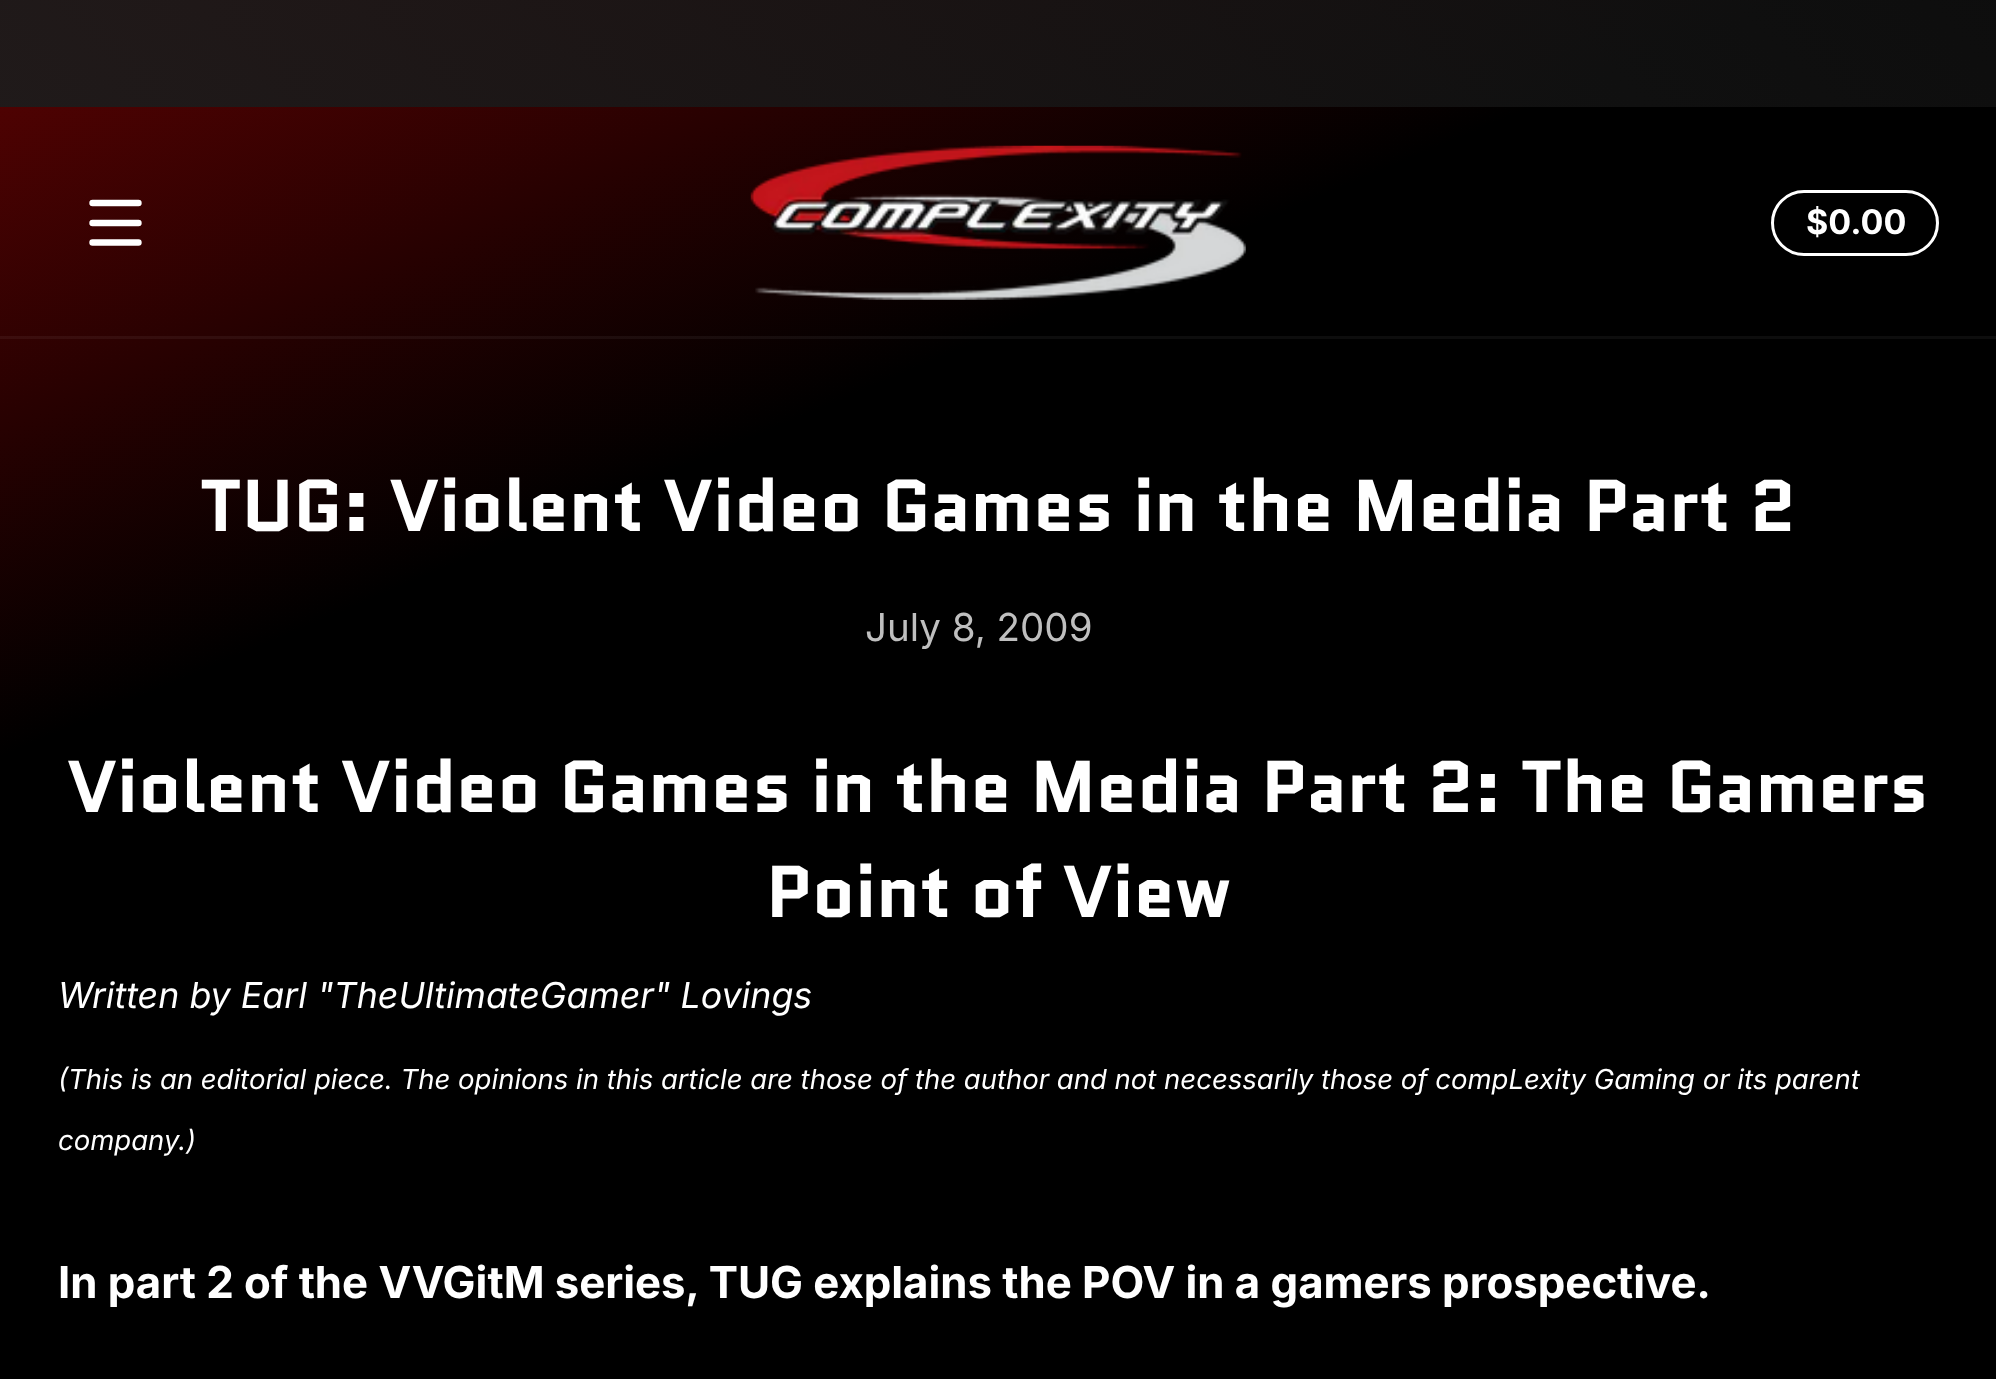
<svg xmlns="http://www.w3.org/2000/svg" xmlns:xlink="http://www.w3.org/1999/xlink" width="1996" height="1379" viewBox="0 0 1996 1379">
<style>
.cls-1{font:bold 34px 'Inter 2';fill:#ffffff}
.cls-2{font:bold 73.15px Quantico;fill:#ffffff}
.cls-3{font:38.5px Inter;fill:#bfbfbf}
.cls-4{font:italic 35.75px Inter;fill:#ffffff}
.cls-5{font:italic 27.5px Inter;fill:#ffffff}
.cls-6{font:bold 44px Inter;fill:#ffffff}
</style>
<defs>
<linearGradient id="g1" gradientUnits="userSpaceOnUse" x1="1399" y1="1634" x2="598" y2="-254"><stop offset="0" stop-color="#000000"/><stop offset="0.66" stop-color="#000000"/><stop offset="0.96" stop-color="#500202"/></linearGradient>
<linearGradient id="g2" gradientUnits="userSpaceOnUse" x1="1399" y1="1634" x2="598" y2="-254"><stop offset="0" stop-color="#0d0d0d"/><stop offset="0.66" stop-color="#0d0d0d"/><stop offset="0.96" stop-color="#590f0f"/></linearGradient>
<linearGradient id="g3" gradientUnits="userSpaceOnUse" x1="137" y1="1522" x2="1860" y2="-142"><stop offset="0" stop-color="#222222"/><stop offset="1" stop-color="#111111" stop-opacity="0.8"/></linearGradient>
</defs>
<rect width="100%" height="100%" fill="#ffffff"/>
<rect fill="url(#g1)" x="0" y="0" width="1996" height="1379"/>
<rect fill="url(#g2)" x="0" y="336" width="1996" height="3"/>
<rect fill="url(#g3)" x="0" y="0" width="1996" height="107"/>
<path fill="none" stroke="#ffffff" stroke-width="6.4" stroke-linecap="round" d="M92.5 203H138.5M92.5 223H138.5M92.5 242.5H138.5"/>
<image xlink:href="image0.png" x="750" y="145" width="496" height="155"/>
<rect fill="none" stroke="#ffffff" stroke-width="3" x="1772.5" y="191.5" width="165" height="63" rx="31.5"/>
<text class="cls-1" x="1806" y="234">$0.00</text>
<text class="cls-2" x="200" y="531">TUG: Violent Video Games in the Media Part 2</text>
<text class="cls-3" x="865" y="641">July 8, 2009</text>
<text class="cls-2" x="67" y="812">Violent Video Games in the Media Part 2: The Gamers</text>
<text class="cls-2" x="766" y="917">Point of View</text>
<text class="cls-4" x="58" y="1008">Written by Earl "TheUltimateGamer" Lovings</text>
<text class="cls-5" x="58" y="1089">(This is an editorial piece. The opinions in this article are those of the author and not necessarily those of compLexity Gaming or its parent</text>
<text class="cls-5" x="58" y="1150">company.)</text>
<text class="cls-6" x="58" y="1298">In part 2 of the VVGitM series, TUG explains the POV in a gamers prospective.</text>
</svg>
